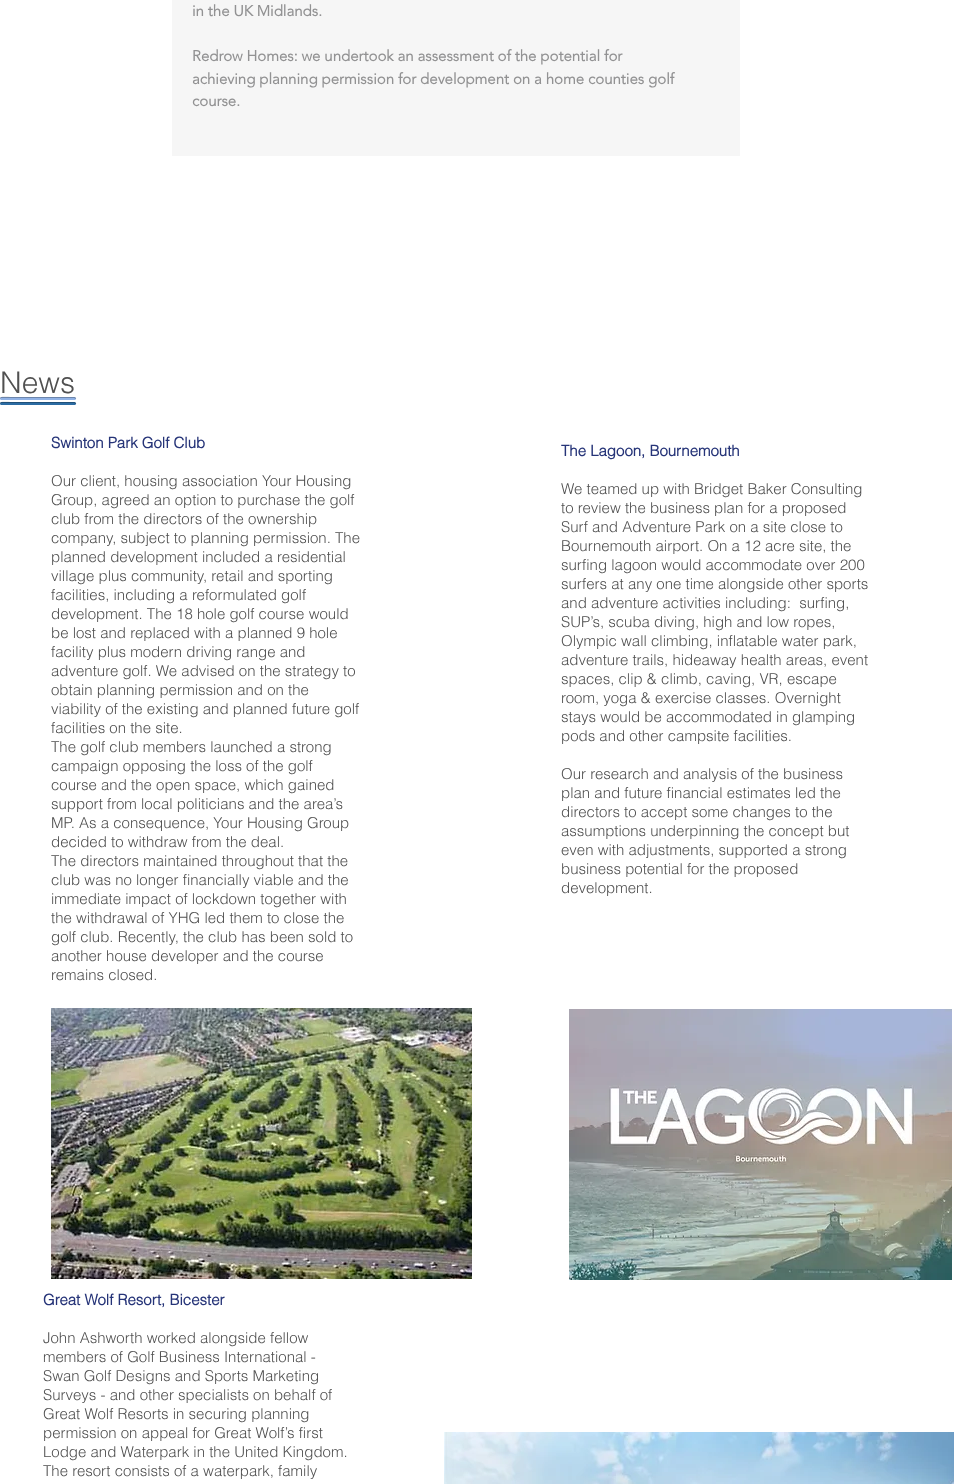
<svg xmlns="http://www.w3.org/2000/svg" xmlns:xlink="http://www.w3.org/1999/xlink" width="954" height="1484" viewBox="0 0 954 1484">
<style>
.cls-1{font:bold 15px 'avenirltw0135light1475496';fill:#929293}
.cls-2{font:300 30px helvetica;fill:#505050}
.cls-3{font:bold 15px helvetica;fill:#263478}
.cls-4{font:300 15px helvetica;fill:#505050}
</style>
<rect width="100%" height="100%" fill="#ffffff"/>
<rect fill="#f6f6f6" x="172" y="0" width="568" height="156"/>
<rect fill="#91b2e5" x="0" y="397" width="76" height="3" rx="1.5"/>
<path fill="#000000" fill-opacity="0.25" d="M2 398H74L76 399V398L75 397H14C3 397-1 396 0 399C0 398 1 398 2 398Z"/>
<rect fill="#2b6ca3" x="0" y="402" width="76" height="3" rx="1.5"/>
<path fill="#000000" fill-opacity="0.25" d="M2 403H74L76 404V403L75 402H14C3 402-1 401 0 404C0 403 1 403 2 403Z"/>
<image xlink:href="image0.png" x="51" y="1008" width="421" height="271"/>
<image xlink:href="image1.png" x="569" y="1009" width="383" height="271"/>
<image xlink:href="image2.png" x="444" y="1432" width="510" height="52"/>
<text class="cls-1" x="192" y="16">in the UK Midlands.</text>
<text class="cls-1"><tspan x="192" y="61">Redrow Homes: we undertook an assessment of the potential for</tspan><tspan x="192" y="84">achieving planning permission for development on a home counties golf</tspan><tspan x="192" y="106">course.</tspan></text>
<text class="cls-2" x="0" y="393">News</text>
<text class="cls-3" x="51" y="448">Swinton Park Golf Club</text>
<text class="cls-4"><tspan x="51" y="486">Our client, housing association Your Housing</tspan><tspan x="51" y="505">Group, agreed an option to purchase the golf</tspan><tspan x="51" y="524">club from the directors of the ownership</tspan><tspan x="51" y="543">company, subject to planning permission. The</tspan><tspan x="51" y="562">planned development included a residential</tspan><tspan x="51" y="581">village plus community, retail and sporting</tspan><tspan x="51" y="600">facilities, including a reformulated golf</tspan><tspan x="51" y="619">development. The 18 hole golf course would</tspan><tspan x="51" y="638">be lost and replaced with a planned 9 hole</tspan><tspan x="51" y="657">facility plus modern driving range and</tspan><tspan x="51" y="676">adventure golf. We advised on the strategy to</tspan><tspan x="51" y="695">obtain planning permission and on the</tspan><tspan x="51" y="714">viability of the existing and planned future golf</tspan><tspan x="51" y="733">facilities on the site.</tspan><tspan x="51" y="752">The golf club members launched a strong</tspan><tspan x="51" y="771">campaign opposing the loss of the golf</tspan><tspan x="51" y="790">course and the open space, which gained</tspan><tspan x="51" y="809">support from local politicians and the area’s</tspan><tspan x="51" y="828">MP. As a consequence, Your Housing Group</tspan><tspan x="51" y="847">decided to withdraw from the deal.</tspan><tspan x="51" y="866">The directors maintained throughout that the</tspan><tspan x="51" y="885">club was no longer financially viable and the</tspan><tspan x="51" y="904">immediate impact of lockdown together with</tspan><tspan x="51" y="923">the withdrawal of YHG led them to close the</tspan><tspan x="51" y="942">golf club. Recently, the club has been sold to</tspan><tspan x="51" y="961">another house developer and the course</tspan><tspan x="51" y="980">remains closed.</tspan></text>
<text class="cls-3" x="561" y="456">The Lagoon, Bournemouth</text>
<text class="cls-4" xml:space="preserve"><tspan x="561" y="494">We teamed up with Bridget Baker Consulting</tspan><tspan x="561" y="513">to review the business plan for a proposed</tspan><tspan x="561" y="532">Surf and Adventure Park on a site close to</tspan><tspan x="561" y="551">Bournemouth airport. On a 12 acre site, the</tspan><tspan x="561" y="570">surfing lagoon would accommodate over 200</tspan><tspan x="561" y="589">surfers at any one time alongside other sports</tspan><tspan x="561" y="608">and adventure activities including:  surfing,</tspan><tspan x="561" y="627">SUP’s, scuba diving, high and low ropes,</tspan><tspan x="561" y="646">Olympic wall climbing, inflatable water park,</tspan><tspan x="561" y="665">adventure trails, hideaway health areas, event</tspan><tspan x="561" y="684">spaces, clip &amp; climb, caving, VR, escape</tspan><tspan x="561" y="703">room, yoga &amp; exercise classes. Overnight</tspan><tspan x="561" y="722">stays would be accommodated in glamping</tspan><tspan x="561" y="741">pods and other campsite facilities.</tspan></text>
<text class="cls-4"><tspan x="561" y="779">Our research and analysis of the business</tspan><tspan x="561" y="798">plan and future financial estimates led the</tspan><tspan x="561" y="817">directors to accept some changes to the</tspan><tspan x="561" y="836">assumptions underpinning the concept but</tspan><tspan x="561" y="855">even with adjustments, supported a strong</tspan><tspan x="561" y="874">business potential for the proposed</tspan><tspan x="561" y="893">development.</tspan></text>
<text class="cls-3" x="43" y="1305">Great Wolf Resort, Bicester</text>
<text class="cls-4"><tspan x="43" y="1343">John Ashworth worked alongside fellow</tspan><tspan x="43" y="1362">members of Golf Business International -</tspan><tspan x="43" y="1381">Swan Golf Designs and Sports Marketing</tspan><tspan x="43" y="1400">Surveys - and other specialists on behalf of</tspan><tspan x="43" y="1419">Great Wolf Resorts in securing planning</tspan><tspan x="43" y="1438">permission on appeal for Great Wolf’s first</tspan><tspan x="43" y="1457">Lodge and Waterpark in the United Kingdom.</tspan><tspan x="43" y="1476">The resort consists of a waterpark, family</tspan></text>
</svg>
